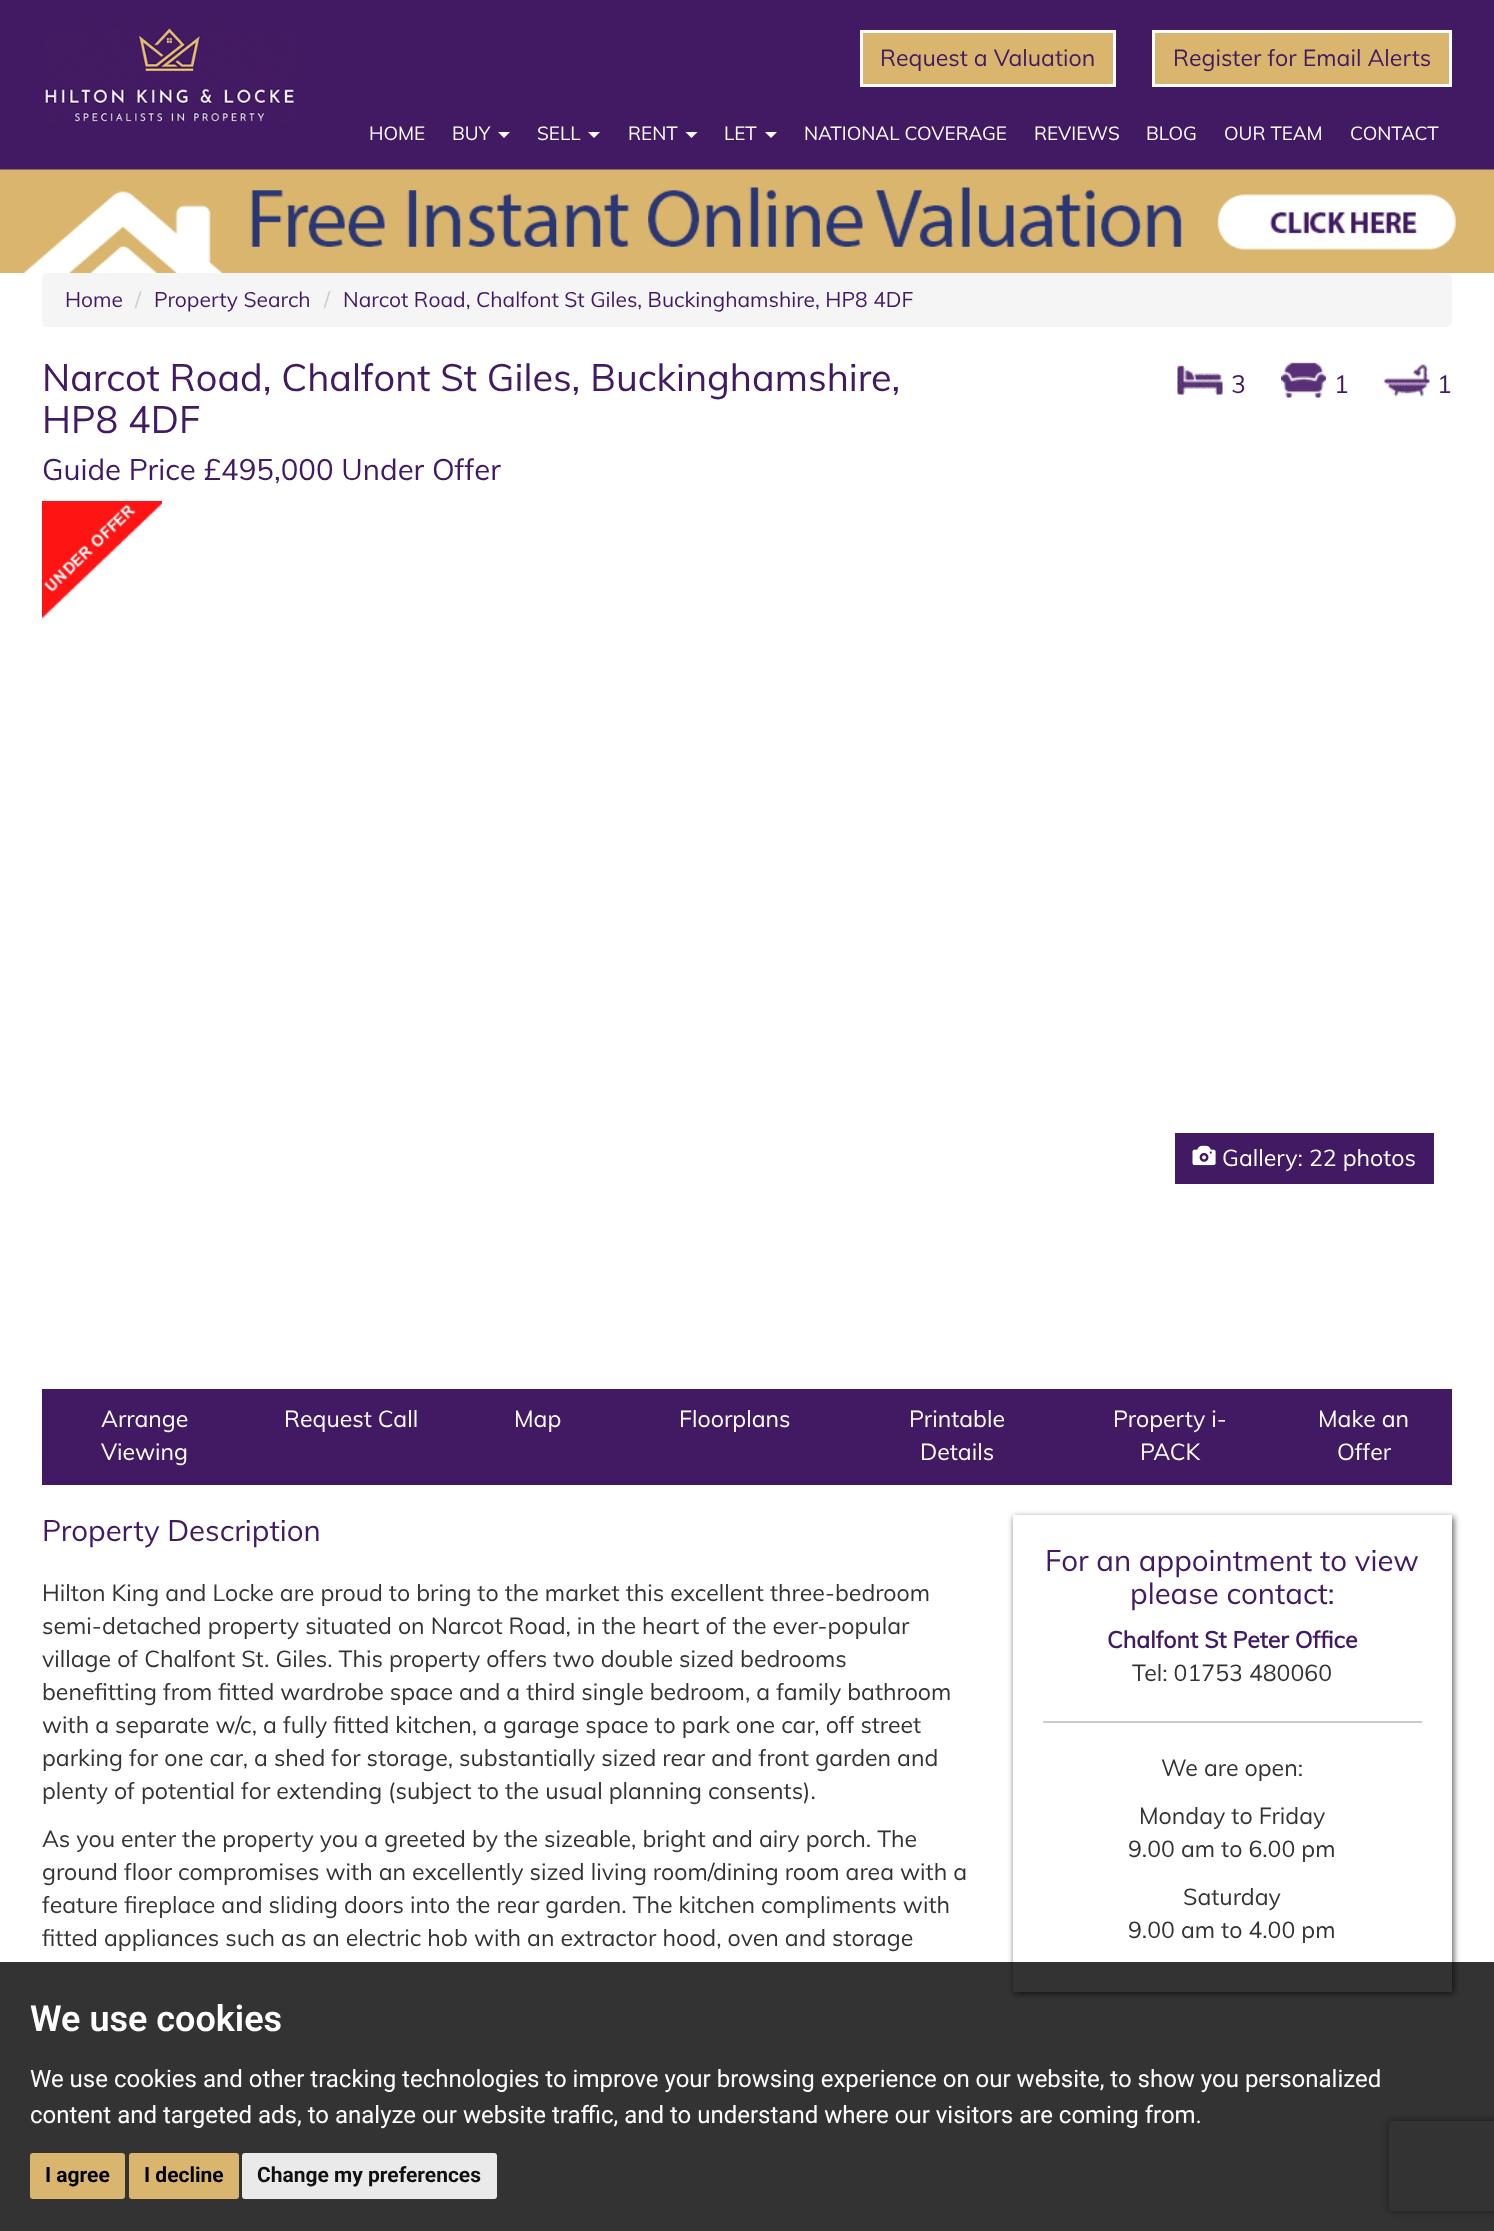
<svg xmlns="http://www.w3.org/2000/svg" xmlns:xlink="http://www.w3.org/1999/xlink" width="1494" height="2231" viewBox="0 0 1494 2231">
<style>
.cls-1{font:23.1px Muli;fill:#421a63}
.cls-2{font:18.9px Muli;fill:#ffffff}
.cls-3{font:21px Muli;fill:#421a63}
.cls-4{font:21px Muli;fill:#cccccc}
.cls-5{font:37.8px Muli;fill:#421a63}
.cls-6{font:29.4px Muli;fill:#421a63}
.cls-7{font:25px Muli;fill:#421a63}
.cls-8{font:23.1px Muli;fill:#ffffff}
.cls-9{font:23.1px Muli;fill:#333333}
.cls-10{font:bold 23.1px Muli;fill:#421a63}
.cls-11{font:600 36px Roboto;fill:#ffffff}
.cls-12{font:24px Roboto;fill:#ffffff}
.cls-13{font:bold 21px Roboto;fill:#000000}
.cls-14{font:bold 21px Roboto;fill:#111111}
</style>
<defs>
<clipPath id="clip1"><path d="M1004 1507H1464V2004H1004ZM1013 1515H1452V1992H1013Z" clip-rule="evenodd"/></clipPath>
<clipPath id="clip2"><path d="M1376 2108H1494V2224H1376ZM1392 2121H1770C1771.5 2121 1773 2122.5 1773 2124V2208C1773 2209.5 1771.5 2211 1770 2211H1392C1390.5 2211 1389 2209.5 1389 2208V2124C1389 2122.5 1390.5 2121 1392 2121Z" clip-rule="evenodd"/></clipPath>
</defs>
<rect width="100%" height="100%" fill="#ffffff"/>
<rect fill="#421a63" x="0" y="0" width="1494" height="170"/>
<image xlink:href="image0.png" x="44" y="28" width="251" height="95"/>
<rect fill="#dab56d" stroke="#ffffff" stroke-width="3" x="861.5" y="31.5" width="253" height="54"/>
<rect fill="#dab56d" stroke="#ffffff" stroke-width="3" x="1153.5" y="31.5" width="297" height="54"/>
<path fill="#ffffff" d="M498 132H510L504 138Z"/>
<path fill="#ffffff" d="M588 132H600L594 138Z"/>
<path fill="#ffffff" d="M685.5 132H697.5L691.5 138Z"/>
<path fill="#ffffff" d="M765 132H777L771 138Z"/>
<image xlink:href="image1.png" x="0" y="169" width="1494" height="104"/>
<rect fill="#f5f5f5" x="42" y="273" width="1410" height="54" rx="6"/>
<image xlink:href="image2.png" x="1177" y="365" width="46" height="30"/>
<image xlink:href="image3.png" x="1281" y="362" width="45" height="36"/>
<image xlink:href="image4.png" x="1384" y="364" width="46" height="33"/>
<image xlink:href="image5.png" x="42" y="501" width="120" height="118"/>
<rect fill="#421a63" x="1175" y="1133" width="259" height="51"/>
<image xlink:href="image6.png" x="1192" y="1145" width="24" height="21"/>
<rect fill="#421a63" x="42" y="1389" width="1410" height="96"/>
<g clip-path="url(#clip1)">
<rect fill="#666666" filter="blur(3px)" x="1014" y="1517" width="440" height="477"/>
</g>
<rect fill="#cccccc" x="1043" y="1721" width="379" height="2"/>
<g clip-path="url(#clip2)">
<rect fill="#808080" filter="blur(4px)" x="1389" y="2121" width="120" height="90" rx="3"/>
</g>
<rect fill="#000000" fill-opacity="0.8" x="0" y="1962" width="1494" height="269"/>
<rect fill="#dab56d" x="30" y="2153" width="95" height="46" rx="3"/>
<rect fill="#dab56d" x="129" y="2153" width="110" height="46" rx="3"/>
<rect fill="#eaeaea" x="242" y="2153" width="255" height="46" rx="3"/>
<text class="cls-1" x="880" y="66">Request a Valuation</text>
<text class="cls-1" x="1173" y="66">Register for Email Alerts</text>
<text class="cls-2" x="369" y="140">HOME</text>
<text class="cls-2" x="452" y="140">BUY</text>
<text class="cls-2" x="537" y="140">SELL</text>
<text class="cls-2" x="628" y="140">RENT</text>
<text class="cls-2" x="724" y="140">LET</text>
<text class="cls-2" x="804" y="140">NATIONAL COVERAGE</text>
<text class="cls-2" x="1034" y="140">REVIEWS</text>
<text class="cls-2" x="1146" y="140">BLOG</text>
<text class="cls-2" x="1224" y="140">OUR TEAM</text>
<text class="cls-2" x="1350" y="140">CONTACT</text>
<text class="cls-3" x="65" y="307">Home</text>
<text class="cls-4" x="135" y="307">/</text>
<text class="cls-3" x="154" y="307">Property Search</text>
<text class="cls-4" x="324" y="307">/</text>
<text class="cls-3" x="343" y="307">Narcot Road, Chalfont St Giles, Buckinghamshire, HP8 4DF</text>
<text class="cls-5"><tspan x="42" y="391">Narcot Road, Chalfont St Giles, Buckinghamshire,</tspan><tspan x="42" y="433">HP8 4DF</tspan></text>
<text class="cls-6" x="42" y="480">Guide Price £495,000 Under Offer</text>
<text class="cls-7" x="1231" y="393">3</text>
<text class="cls-7" x="1334" y="393">1</text>
<text class="cls-7" x="1437" y="393">1</text>
<text class="cls-8" x="1222" y="1166">Gallery: 22 photos</text>
<text class="cls-8"><tspan x="101" y="1427">Arrange</tspan><tspan x="101" y="1460">Viewing</tspan></text>
<text class="cls-8" x="284" y="1427">Request Call</text>
<text class="cls-8" x="514" y="1427">Map</text>
<text class="cls-8" x="679" y="1427">Floorplans</text>
<text class="cls-8" x="909" y="1427">Printable</text>
<text class="cls-8" x="920" y="1460">Details</text>
<text class="cls-8" x="1113" y="1427">Property i-</text>
<text class="cls-8" x="1140" y="1460">PACK</text>
<text class="cls-8" x="1318" y="1427">Make an</text>
<text class="cls-8" x="1337" y="1460">Offer</text>
<text class="cls-6" x="42" y="1541">Property Description</text>
<text class="cls-9"><tspan x="42" y="1601">Hilton King and Locke are proud to bring to the market this excellent three-bedroom</tspan><tspan x="42" y="1634">semi-detached property situated on Narcot Road, in the heart of the ever-popular</tspan><tspan x="42" y="1667">village of Chalfont St. Giles. This property offers two double sized bedrooms</tspan><tspan x="42" y="1700">benefitting from fitted wardrobe space and a third single bedroom, a family bathroom</tspan><tspan x="42" y="1733">with a separate w/c, a fully fitted kitchen, a garage space to park one car, off street</tspan><tspan x="42" y="1766">parking for one car, a shed for storage, substantially sized rear and front garden and</tspan><tspan x="42" y="1799">plenty of potential for extending (subject to the usual planning consents).</tspan></text>
<text class="cls-9"><tspan x="42" y="1847">As you enter the property you a greeted by the sizeable, bright and airy porch. The</tspan><tspan x="42" y="1880">ground floor compromises with an excellently sized living room/dining room area with a</tspan><tspan x="42" y="1913">feature fireplace and sliding doors into the rear garden. The kitchen compliments with</tspan><tspan x="42" y="1946">fitted appliances such as an electric hob with an extractor hood, oven and storage</tspan></text>
<text class="cls-6" x="1045" y="1571">For an appointment to view</text>
<text class="cls-6" x="1130" y="1604">please contact:</text>
<text class="cls-10" x="1107" y="1648">Chalfont St Peter Office</text>
<text class="cls-9" x="1132" y="1681">Tel: 01753 480060</text>
<text class="cls-9" x="1161" y="1776">We are open:</text>
<text class="cls-9" x="1139" y="1824">Monday to Friday</text>
<text class="cls-9" x="1128" y="1857">9.00 am to 6.00 pm</text>
<text class="cls-9" x="1183" y="1905">Saturday</text>
<text class="cls-9" x="1128" y="1938">9.00 am to 4.00 pm</text>
<text class="cls-11" x="30" y="2031">We use cookies</text>
<text class="cls-12"><tspan x="30" y="2087">We use cookies and other tracking technologies to improve your browsing experience on our website, to show you personalized</tspan><tspan x="30" y="2123">content and targeted ads, to analyze our website traffic, and to understand where our visitors are coming from.</tspan></text>
<text class="cls-13" x="45" y="2182">I agree</text>
<text class="cls-13" x="144" y="2182">I decline</text>
<text class="cls-14" x="257" y="2182">Change my preferences</text>
</svg>
